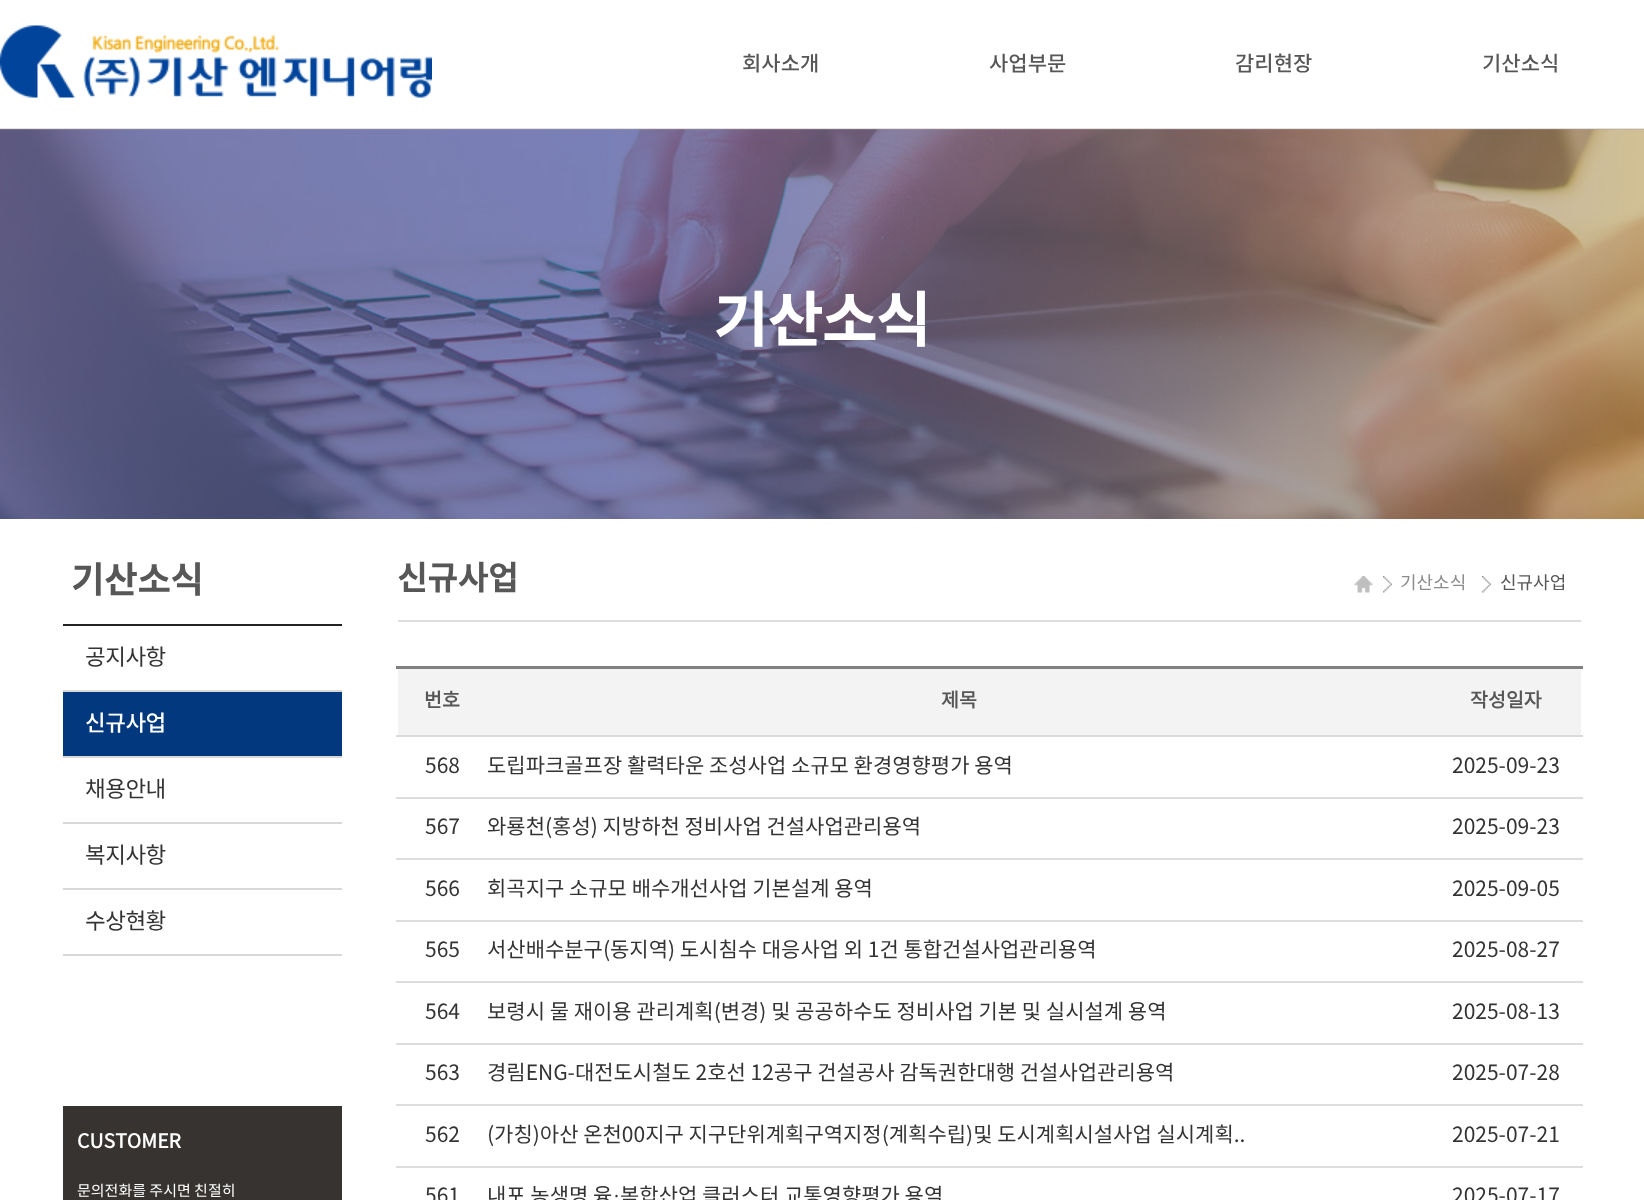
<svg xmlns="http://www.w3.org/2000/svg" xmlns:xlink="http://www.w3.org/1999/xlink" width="1644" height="1200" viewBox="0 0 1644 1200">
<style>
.cls-1{font:500 21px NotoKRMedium;fill:#575757}
.cls-2{font:bold 60px NotoKRMedium;letter-spacing:-1px;fill:#ffffff}
.cls-3{font:bold 36px NotoKRMedium;fill:#575757}
.cls-4{font:22.5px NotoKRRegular;letter-spacing:-0.5px;fill:#333333}
.cls-5{font:500 22.5px NotoKRMedium;letter-spacing:-0.5px;fill:#ffffff}
.cls-6{font:bold 19.5px NotoKRRegular;fill:#ffffff}
.cls-7{font:15px NotoKRRegular;fill:#ffffff}
.cls-8{font:bold 33px NotoKRMedium;fill:#575757}
.cls-9{font:18px NotoKRRegular;fill:#8c8c8c}
.cls-10{font:18px NotoKRRegular;fill:#575757}
.cls-11{font:bold 19.5px NotoKRRegular;fill:#575757}
.cls-12{font:21px NotoKRRegular;fill:#333333}
.cls-13{font:21px Liberation Serif;fill:#333333}
</style>
<rect width="100%" height="100%" fill="#ffffff"/>
<image xlink:href="image1.png" x="0" y="129" width="1644" height="390"/>
<rect fill="#a59b99" fill-opacity="0.3" x="0" y="128" width="1644" height="2"/>
<image xlink:href="image0.png" x="0" y="25" width="432" height="73"/>
<rect fill="#222222" x="63" y="624" width="279" height="2"/>
<rect fill="#d8d8d8" x="63" y="690" width="279" height="2"/>
<rect fill="#d8d8d8" x="63" y="756" width="279" height="2"/>
<rect fill="#02387e" x="63" y="692" width="279" height="64"/>
<rect fill="#d8d8d8" x="63" y="822" width="279" height="2"/>
<rect fill="#d8d8d8" x="63" y="888" width="279" height="2"/>
<rect fill="#d8d8d8" x="63" y="954" width="279" height="2"/>
<rect fill="#363331" x="63" y="1106" width="279" height="94"/>
<rect fill="#dddddd" x="398" y="620" width="1183" height="2"/>
<image xlink:href="image2.png" x="1354" y="576" width="19" height="17"/>
<image xlink:href="image3.png" x="1383" y="576" width="9" height="17"/>
<image xlink:href="image4.png" x="1482" y="576" width="9" height="17"/>
<rect fill="#f3f3f3" x="398" y="669" width="1183" height="66"/>
<rect fill="#dadada" x="396" y="735" width="1187" height="2"/>
<rect fill="#808080" x="396" y="666" width="1187" height="3"/>
<rect fill="#dddddd" x="396" y="797" width="1187" height="2"/>
<rect fill="#dddddd" x="396" y="858" width="1187" height="2"/>
<rect fill="#dddddd" x="396" y="920" width="1187" height="2"/>
<rect fill="#dddddd" x="396" y="981" width="1187" height="2"/>
<rect fill="#dddddd" x="396" y="1043" width="1187" height="2"/>
<rect fill="#dddddd" x="396" y="1104" width="1187" height="2"/>
<rect fill="#dddddd" x="396" y="1166" width="1187" height="2"/>
<text class="cls-1" x="742" y="71">회사소개</text>
<text class="cls-1" x="989" y="71">사업부문</text>
<text class="cls-1" x="1235" y="71">감리현장</text>
<text class="cls-1" x="1482" y="71">기산소식</text>
<text class="cls-2" x="713" y="342">기산소식</text>
<text class="cls-3" x="71" y="593">기산소식</text>
<text class="cls-4" x="85" y="665">공지사항</text>
<text class="cls-5" x="85" y="731">신규사업</text>
<text class="cls-4" x="85" y="797">채용안내</text>
<text class="cls-4" x="85" y="863">복지사항</text>
<text class="cls-4" x="85" y="929">수상현황</text>
<text class="cls-6" x="77" y="1148">CUSTOMER</text>
<text class="cls-7" x="77" y="1196">문의전화를 주시면 친절히</text>
<text class="cls-8" x="397" y="590">신규사업</text>
<text class="cls-9" x="1400" y="589">기산소식</text>
<text class="cls-10" x="1500" y="589">신규사업</text>
<text class="cls-11" x="424" y="707">번호</text>
<text class="cls-11" x="941" y="707">제목</text>
<text class="cls-11" x="1470" y="707">작성일자</text>
<text class="cls-12" x="425" y="773">568</text>
<text class="cls-12" x="487" y="773">도립파크골프장 활력타운 조성사업 소규모 환경영향평가 용역</text>
<text class="cls-12" x="1452" y="773">2025-09-23</text>
<text class="cls-12" x="425" y="834">567</text>
<text class="cls-12" x="487" y="834">와룡천(홍성) 지방하천 정비사업 건설사업관리용역</text>
<text class="cls-12" x="1452" y="834">2025-09-23</text>
<text class="cls-12" x="425" y="896">566</text>
<text class="cls-12" x="487" y="896">회곡지구 소규모 배수개선사업 기본설계 용역</text>
<text class="cls-12" x="1452" y="896">2025-09-05</text>
<text class="cls-12" x="425" y="957">565</text>
<text class="cls-12" x="487" y="957">서산배수분구(동지역) 도시침수 대응사업 외 1건 통합건설사업관리용역</text>
<text class="cls-12" x="1452" y="957">2025-08-27</text>
<text class="cls-12" x="425" y="1019">564</text>
<text class="cls-12" x="487" y="1019">보령시 물 재이용 관리계획(변경) 및 공공하수도 정비사업 기본 및 실시설계 용역</text>
<text class="cls-12" x="1452" y="1019">2025-08-13</text>
<text class="cls-12" x="425" y="1080">563</text>
<text class="cls-12" x="487" y="1080">경림ENG-대전도시철도 2호선 12공구 건설공사 감독권한대행 건설사업관리용역</text>
<text class="cls-12" x="1452" y="1080">2025-07-28</text>
<text class="cls-12" x="425" y="1142">562</text>
<text class="cls-12" x="487" y="1142">(가칭)아산 온천00지구 지구단위계획구역지정(계획수립)및 도시계획시설사업 실시계획..</text>
<text class="cls-12" x="1452" y="1142">2025-07-21</text>
<text class="cls-12" x="425" y="1203">561</text>
<text class="cls-12" x="487" y="1203">내포 농생명 융</text>
<text class="cls-13" x="613" y="1203">·</text>
<text class="cls-12" x="620" y="1203">복합산업 클러스터 교통영향평가 용역</text>
<text class="cls-12" x="1452" y="1203">2025-07-17</text>
</svg>
